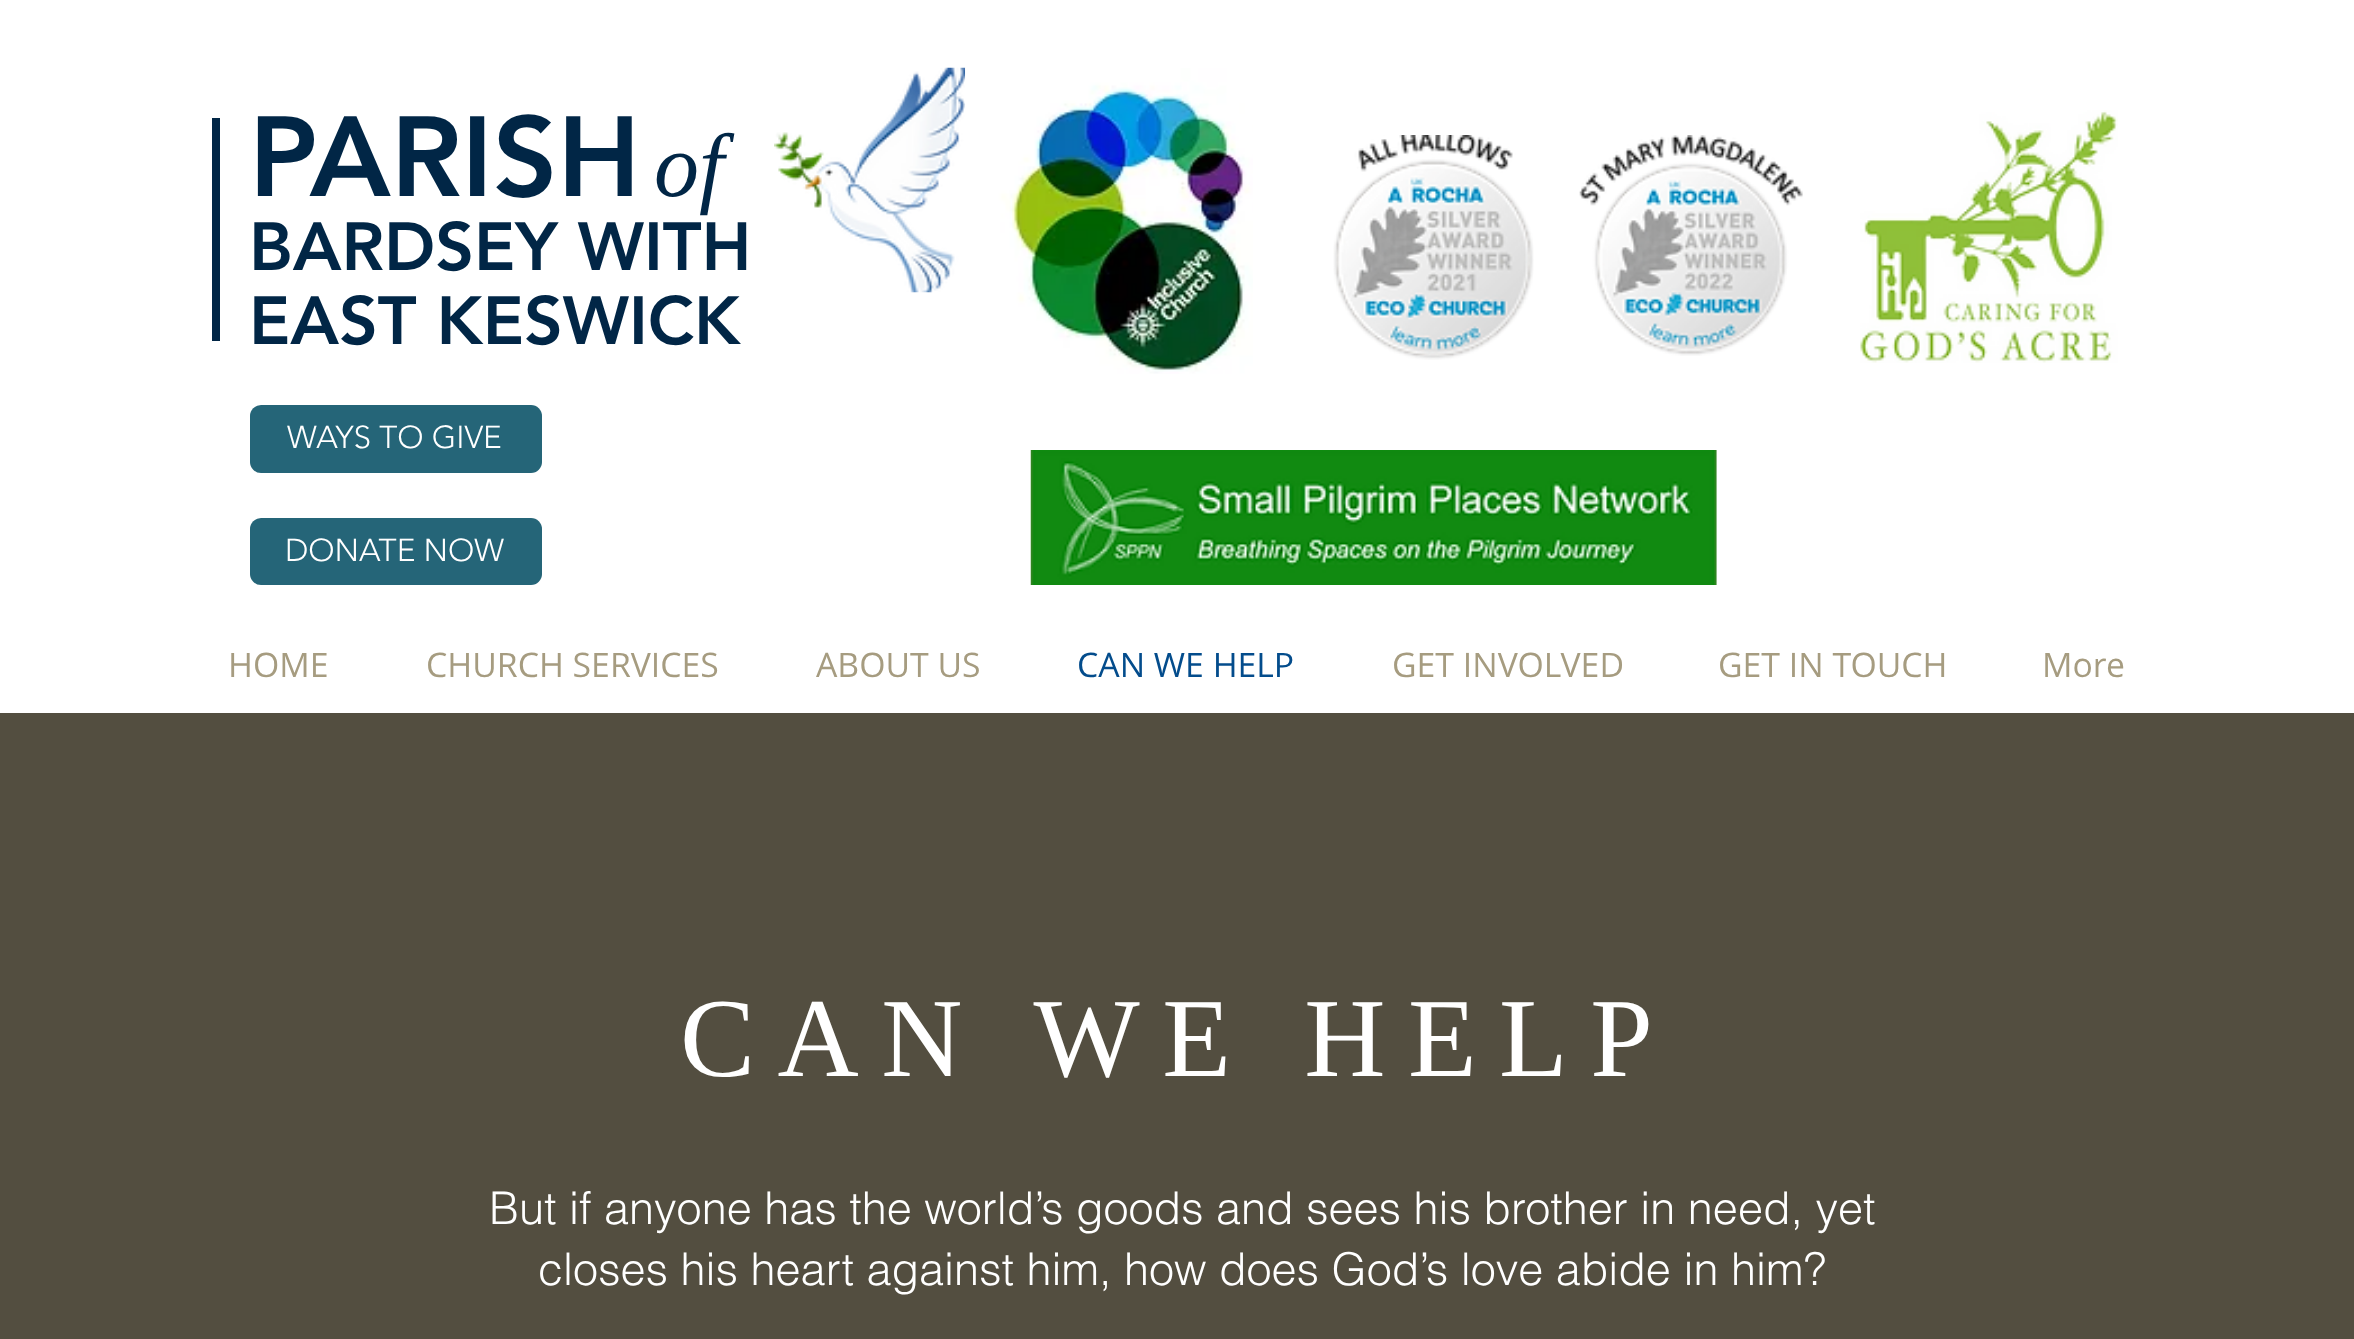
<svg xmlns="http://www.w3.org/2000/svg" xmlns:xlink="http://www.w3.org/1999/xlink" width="2354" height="1339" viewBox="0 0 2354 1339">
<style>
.cls-1{font:900 112.5px 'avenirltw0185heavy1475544';fill:#012646}
.cls-2{font:italic 90px Liberation Serif;fill:#012646}
.cls-3{font:900 67.5px 'avenirltw0185heavy1475544';fill:#012646}
.cls-4{font:300 31.5px 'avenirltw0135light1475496';fill:#ffffff}
.cls-5{font:33.75px Open Sans;fill:#a69c80}
.cls-6{font:33.75px Open Sans;fill:#034c8c}
.cls-7{font:112.5px Liberation Serif;letter-spacing:22.5px;fill:#ffffff}
.cls-8{font:300 45px helvetica;fill:#ffffff}
</style>
<rect width="100%" height="100%" fill="#ffffff"/>
<rect fill="#012646" x="212" y="118" width="8" height="223"/>
<image xlink:href="image0.png" x="774" y="67" width="192" height="226"/>
<image xlink:href="image1.png" x="965" y="68" width="288" height="306"/>
<image xlink:href="image2.png" x="1333" y="135" width="201" height="225"/>
<image xlink:href="image3.png" x="1579" y="135" width="224" height="221"/>
<image xlink:href="image4.png" x="1860" y="110" width="258" height="253"/>
<rect fill="#256578" x="250" y="405" width="292" height="68" rx="11"/>
<rect fill="#256578" x="250" y="518" width="292" height="67" rx="11"/>
<image xlink:href="image5.png" x="1030" y="450" width="687" height="135"/>
<rect fill="#534e40" x="0" y="713" width="2354" height="626"/>
<text class="cls-1" x="249" y="196">PARISH</text>
<text class="cls-2" x="654" y="196">of</text>
<text class="cls-3"><tspan x="249" y="270">BARDSEY WITH</tspan><tspan x="249" y="344">EAST KESWICK</tspan></text>
<text class="cls-4" x="287" y="448">WAYS TO GIVE</text>
<text class="cls-4" x="285" y="561">DONATE NOW</text>
<text class="cls-5" x="228" y="677">HOME</text>
<text class="cls-5" x="426" y="677">CHURCH SERVICES</text>
<text class="cls-5" x="816" y="677">ABOUT US</text>
<text class="cls-6" x="1077" y="677">CAN WE HELP</text>
<text class="cls-5" x="1392" y="677">GET INVOLVED</text>
<text class="cls-5" x="1718" y="677">GET IN TOUCH</text>
<text class="cls-5" x="2042" y="677">More</text>
<text class="cls-7" x="680" y="1076">CAN WE HELP</text>
<text class="cls-8" x="489" y="1224">But if anyone has the world’s goods and sees his brother in need, yet</text>
<text class="cls-8" x="538" y="1285">closes his heart against him, how does God’s love abide in him?</text>
</svg>
